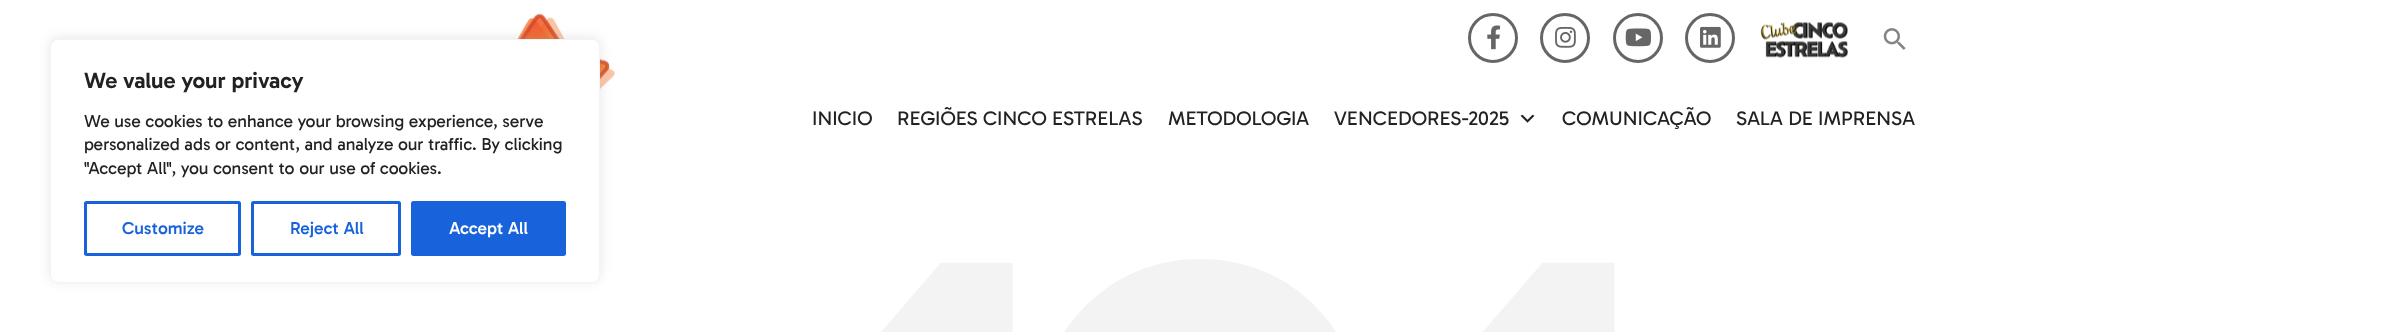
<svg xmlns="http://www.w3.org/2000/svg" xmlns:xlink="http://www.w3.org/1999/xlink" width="2393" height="332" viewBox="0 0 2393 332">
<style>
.cls-1{font:600 22.5px Gabarito;fill:#222222}
.cls-2{font:17.5px Gabarito;fill:#222222}
.cls-3{font:500 17.5px Gabarito;fill:#1863dc}
.cls-4{font:500 17.5px Gabarito;fill:#ffffff}
.cls-5{font:20px Gabarito;fill:#222222}
</style>
<rect width="100%" height="100%" fill="#ffffff"/>
<image xlink:href="image0.png" x="517" y="13" width="98" height="76"/>
<rect fill="#acabab" fill-opacity="0.3" filter="blur(6px)" x="50" y="38" width="550" height="243" rx="8"/>
<rect fill="#ffffff" stroke="#f4f4f4" x="50.5" y="39.5" width="549" height="243" rx="7.5"/>
<rect fill="none" stroke="#1863dc" stroke-width="3" x="85.5" y="202.5" width="154" height="52" rx="1"/>
<rect fill="none" stroke="#1863dc" stroke-width="3" x="252.5" y="202.5" width="147" height="52" rx="1"/>
<rect fill="#1863dc" stroke="#1863dc" stroke-width="3" x="412.5" y="202.5" width="152" height="52" rx="1"/>
<circle fill="none" stroke="#666666" stroke-width="3" cx="1493" cy="38" r="23.5"/>
<image xlink:href="image1.png" x="1487" y="25" width="14" height="25"/>
<circle fill="none" stroke="#666666" stroke-width="3" cx="1565" cy="38" r="23.5"/>
<image xlink:href="image2.png" x="1555" y="26" width="21" height="22"/>
<circle fill="none" stroke="#666666" stroke-width="3" cx="1638" cy="38" r="23.5"/>
<image xlink:href="image3.png" x="1625" y="28" width="26" height="19"/>
<circle fill="none" stroke="#666666" stroke-width="3" cx="1710" cy="38" r="23.5"/>
<image xlink:href="image4.png" x="1700" y="26" width="21" height="22"/>
<image xlink:href="image5.png" x="1760" y="21" width="88" height="37"/>
<image xlink:href="image6.png" x="1883" y="28" width="23" height="22"/>
<image xlink:href="image7.png" x="1520" y="114" width="15" height="9"/>
<image xlink:href="image8.png" x="881" y="259" width="734" height="73"/>
<text class="cls-1" x="84" y="88">We value your privacy</text>
<text class="cls-2"><tspan x="84" y="127">We use cookies to enhance your browsing experience, serve</tspan><tspan x="84" y="150">personalized ads or content, and analyze our traffic. By clicking</tspan><tspan x="84" y="174">"Accept All", you consent to our use of cookies.</tspan></text>
<text class="cls-3" x="122" y="234">Customize</text>
<text class="cls-3" x="290" y="234">Reject All</text>
<text class="cls-4" x="449" y="234">Accept All</text>
<text class="cls-5" x="812" y="125">INICIO</text>
<text class="cls-5" x="897" y="125">REGIÕES CINCO ESTRELAS</text>
<text class="cls-5" x="1168" y="125">METODOLOGIA</text>
<text class="cls-5" x="1334" y="125">VENCEDORES-2025</text>
<text class="cls-5" x="1562" y="125">COMUNICAÇÃO</text>
<text class="cls-5" x="1736" y="125">SALA DE IMPRENSA</text>
</svg>
